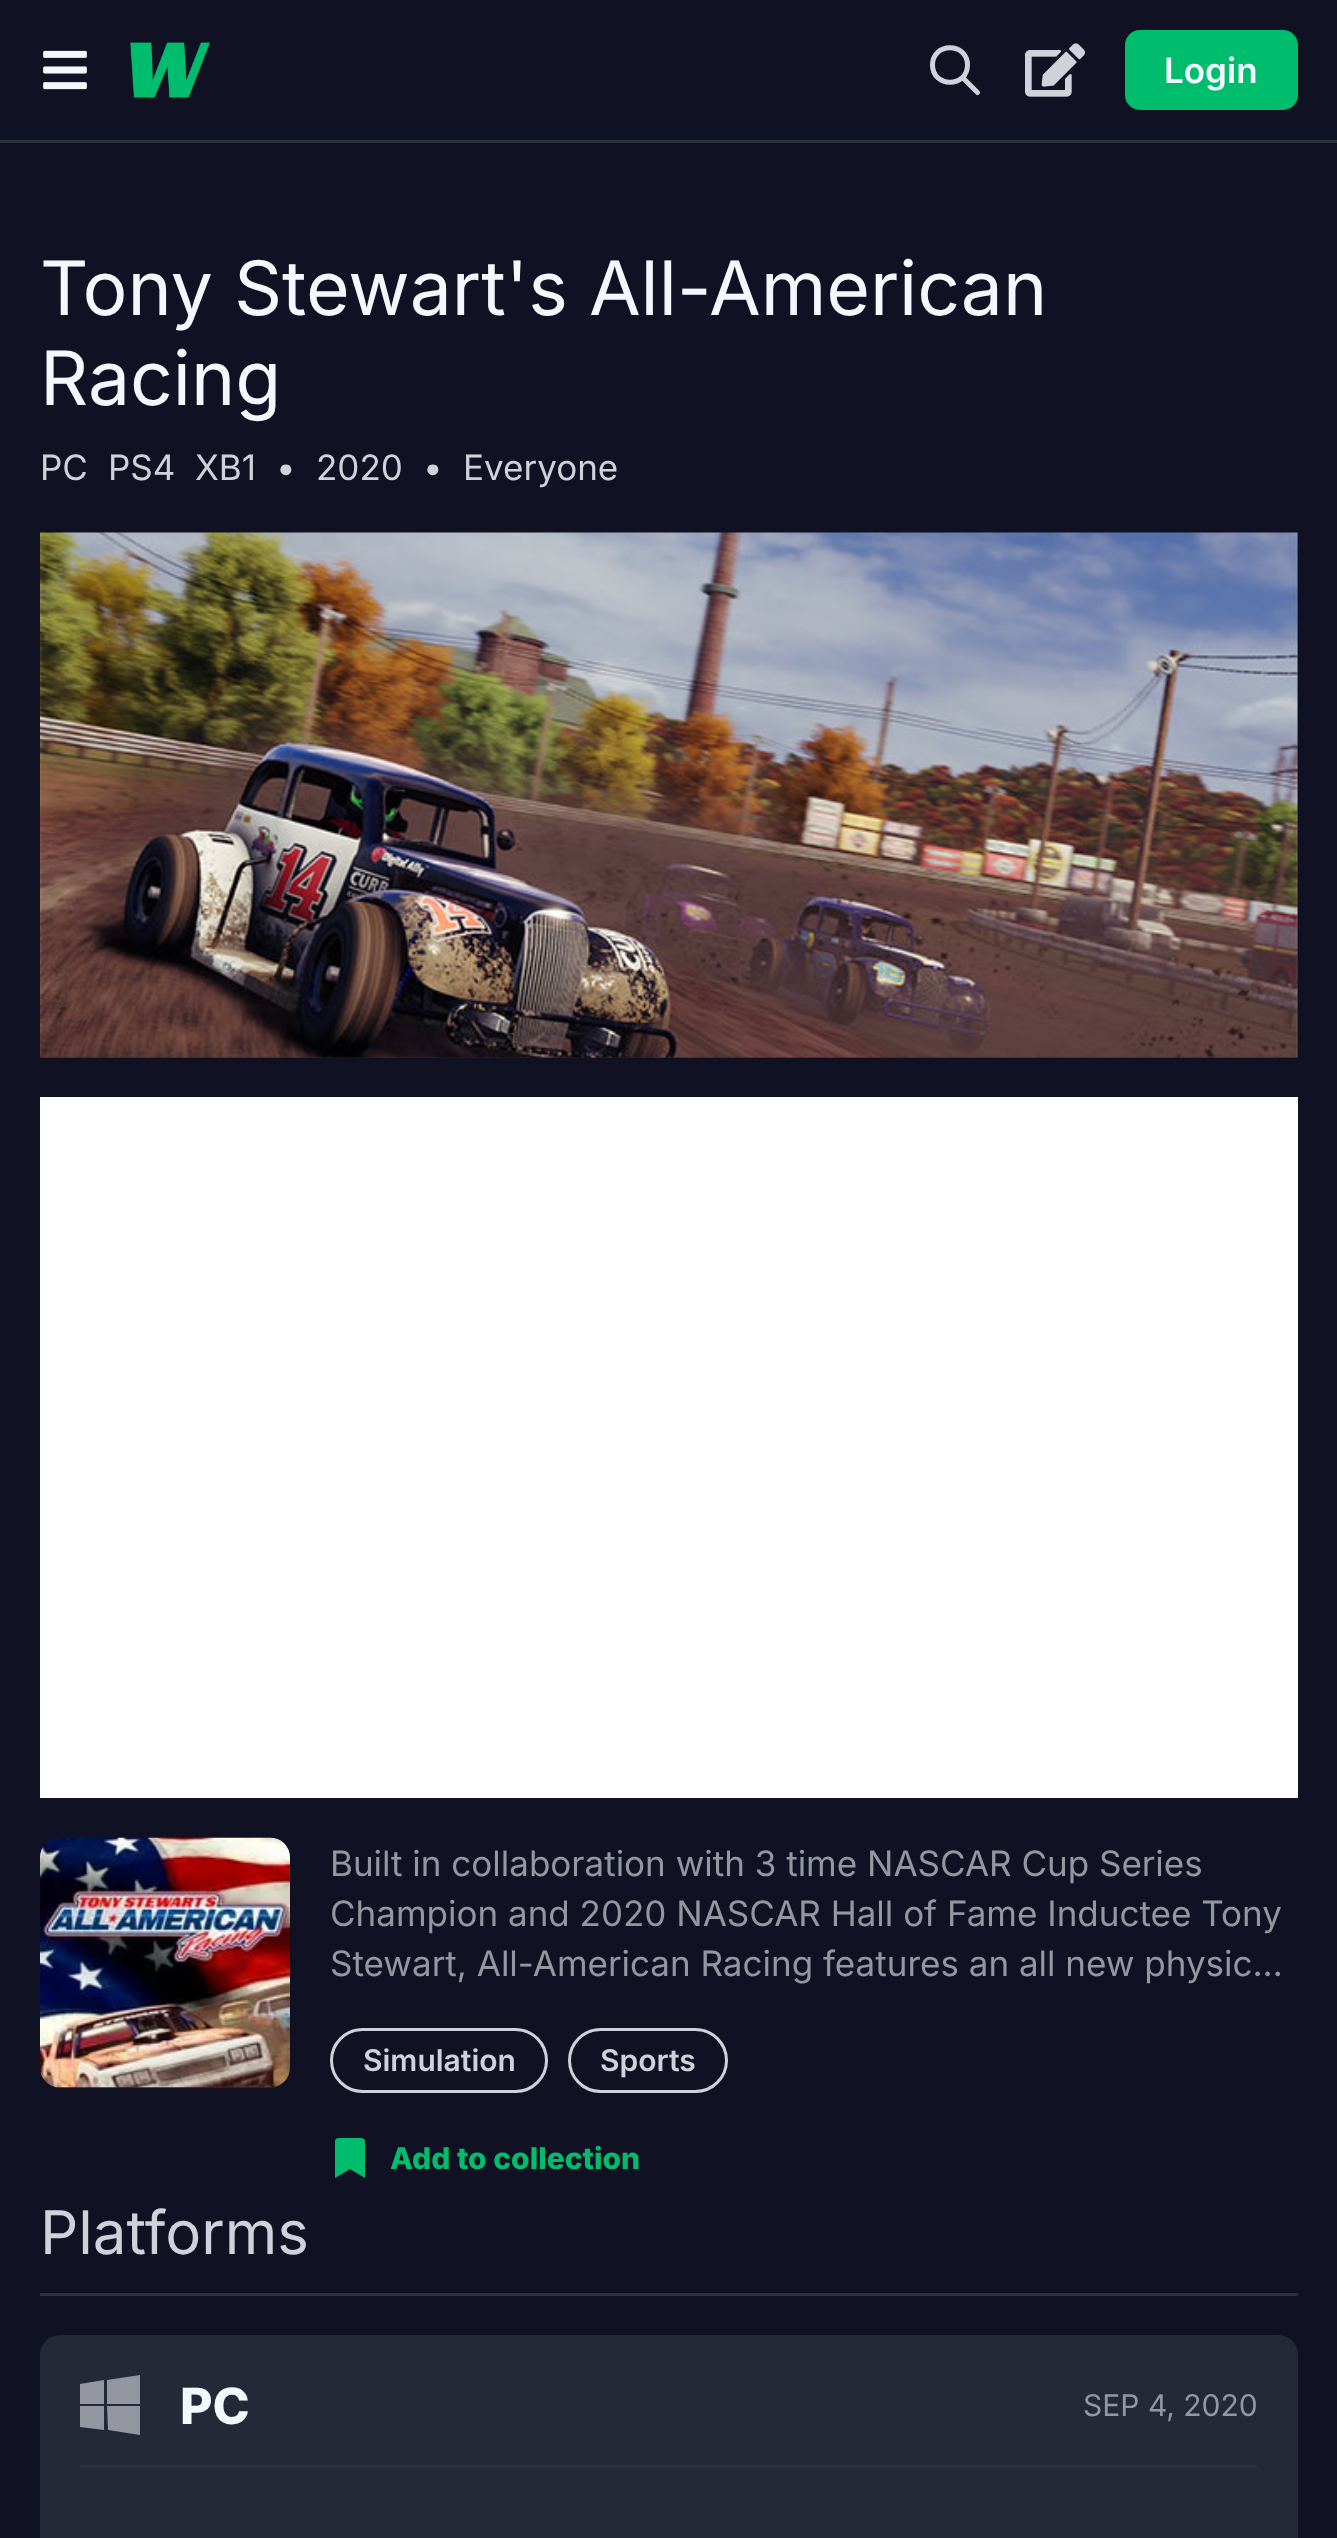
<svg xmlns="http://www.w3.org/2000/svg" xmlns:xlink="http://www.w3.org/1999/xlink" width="1337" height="2538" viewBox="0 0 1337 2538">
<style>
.cls-1{font:600 35px Inter;fill:#f5f7ff}
.cls-2{font:75px Inter;fill:#f5f7ff}
.cls-3{font:35px Inter;fill:#d0d2db}
.cls-4{font:35px Inter;fill:#9496a1}
.cls-5{font:600 30px Inter;fill:#d0d2db}
.cls-6{font:800 30px Inter;fill:#00bd6d}
.cls-7{font:60px Inter;fill:#d0d2db}
.cls-8{font:800 50px Inter;fill:#f5f7ff}
.cls-9{font:30px Inter;fill:#9496a1}
</style>
<rect width="100%" height="100%" fill="#101223"/>
<rect fill="#2d303d" x="0" y="140" width="1337" height="3"/>
<image xlink:href="image0.png" x="43" y="50" width="44" height="40"/>
<image xlink:href="image1.png" x="130" y="42" width="80" height="56"/>
<path fill="none" stroke="#d0d2db" stroke-width="5" stroke-linecap="round" stroke-linejoin="round" d="M977.5 92.5L962.5 77.5M967.5 65C967.5 88 932.5 88 932.5 65C932.5 42 967.5 42 967.5 65Z"/>
<image xlink:href="image2.png" x="1025" y="43" width="60" height="54"/>
<rect fill="#00bd6d" x="1125" y="30" width="173" height="80" rx="15"/>
<rect fill="#212230" x="40" y="533" width="1258" height="525"/>
<image xlink:href="image3.png" x="40" y="532" width="1258" height="526"/>
<rect fill="#ffffff" x="40" y="1097" width="1258" height="701"/>
<rect fill="#212230" x="40" y="1838" width="250" height="250" rx="20"/>
<image xlink:href="image4.png" x="40" y="1837" width="250" height="251"/>
<rect fill="none" stroke="#d0d2db" stroke-width="3" x="331.5" y="2029.5" width="215" height="62" rx="31"/>
<rect fill="none" stroke="#d0d2db" stroke-width="3" x="569.5" y="2029.5" width="157" height="62" rx="31"/>
<path fill="#00bd6d" d="M335 2178V2141C335 2139 337 2138 339 2138H361C363 2138 365 2139 365 2141V2178L350 2169Z"/>
<rect fill="#2d303d" x="40" y="2293" width="1258" height="3"/>
<rect fill="#252836" x="40" y="2335" width="1258" height="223" rx="20"/>
<path fill="#9496a1" d="M80 2384L104 2380V2404H80M107 2380L140 2375V2404H107M80 2406H104V2430L80 2427M107 2406H140V2435L108 2430"/>
<rect fill="#2d303d" x="80" y="2465" width="1178" height="3"/>
<text class="cls-1" x="1164" y="83">Login</text>
<text class="cls-2"><tspan x="40" y="315">Tony Stewart's All-American</tspan><tspan x="40" y="405">Racing</tspan></text>
<text class="cls-3" x="40" y="480">PC</text>
<text class="cls-3" x="108" y="480">PS4</text>
<text class="cls-3" x="195" y="480">XB1</text>
<text class="cls-3" x="276" y="480">•</text>
<text class="cls-3" x="316" y="480">2020</text>
<text class="cls-3" x="423" y="480">•</text>
<text class="cls-3" x="463" y="480">Everyone</text>
<text class="cls-4"><tspan x="330" y="1876">Built in collaboration with 3 time NASCAR Cup Series</tspan><tspan x="330" y="1926">Champion and 2020 NASCAR Hall of Fame Inductee Tony</tspan><tspan x="330" y="1976">Stewart, All-American Racing features an all new physic…</tspan></text>
<text class="cls-5" x="363" y="2071">Simulation</text>
<text class="cls-5" x="600" y="2071">Sports</text>
<text class="cls-6" x="390" y="2169">Add to collection</text>
<text class="cls-7" x="40" y="2254">Platforms</text>
<text class="cls-8" x="180" y="2424">PC</text>
<text class="cls-9" x="1083" y="2416">SEP 4, 2020</text>
</svg>
